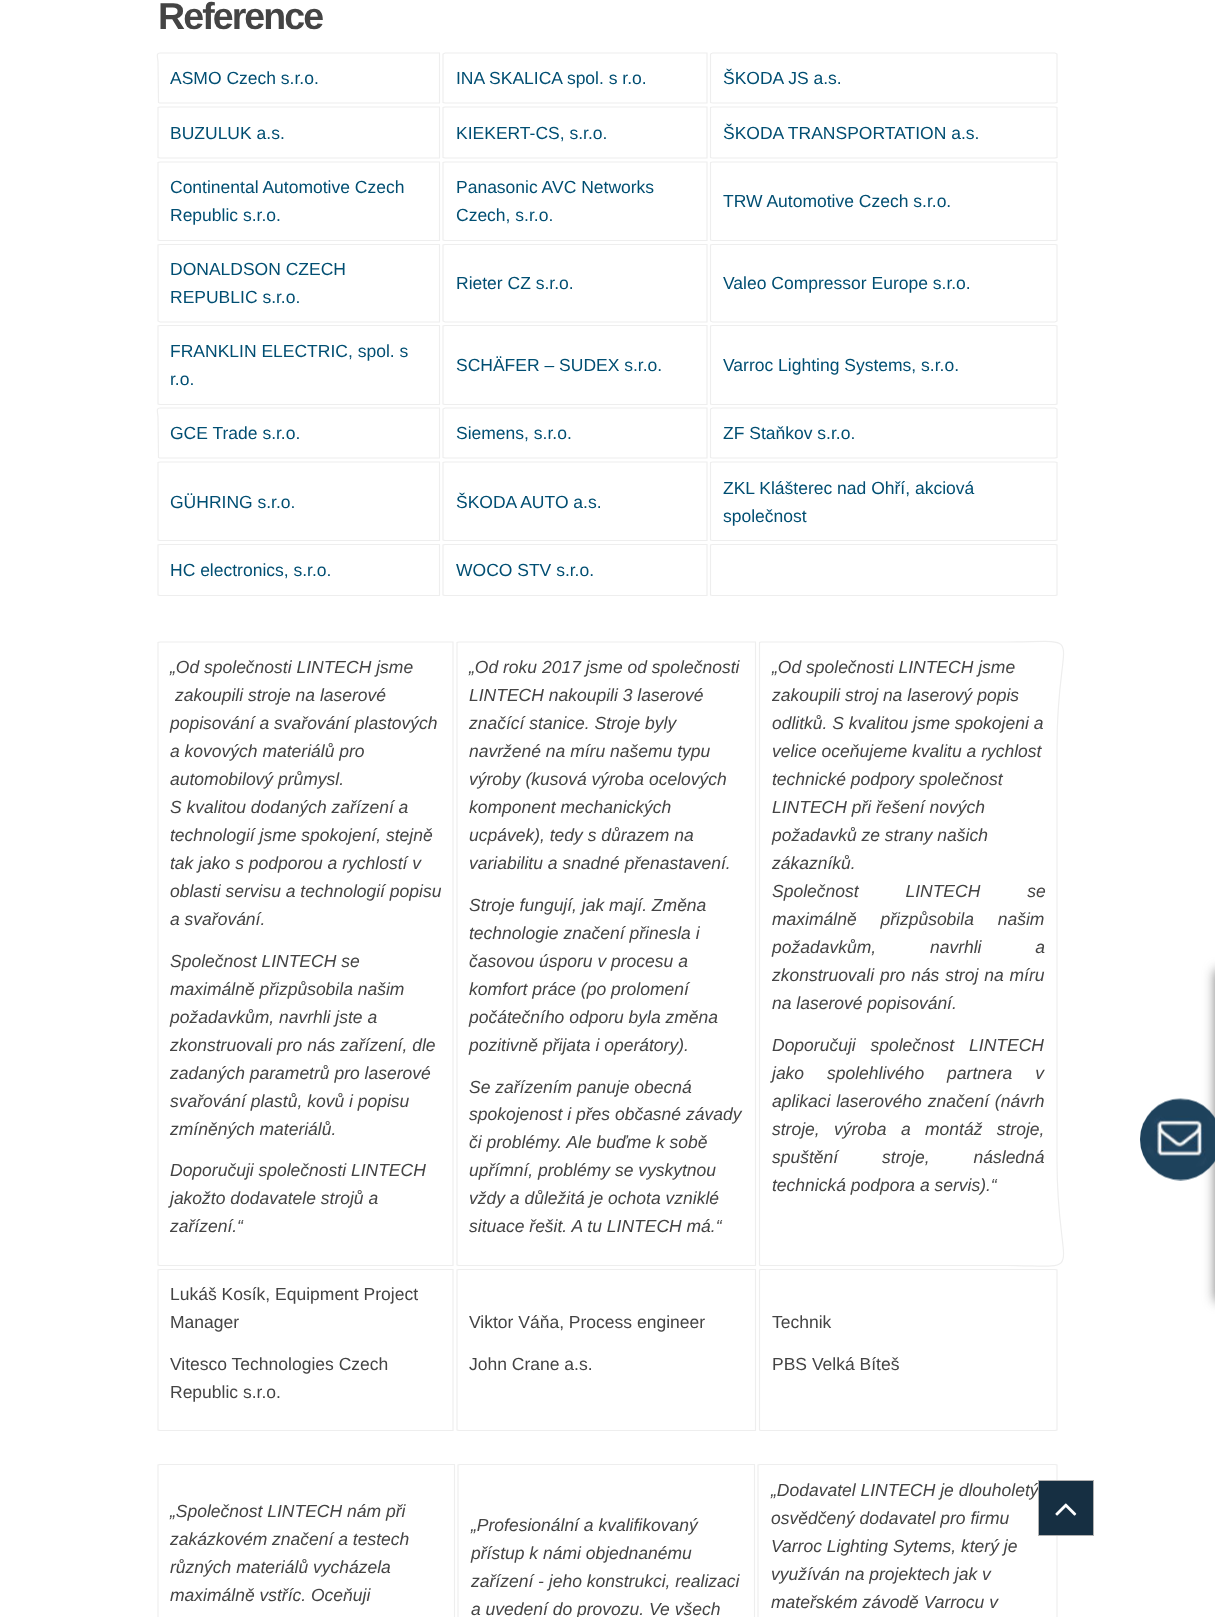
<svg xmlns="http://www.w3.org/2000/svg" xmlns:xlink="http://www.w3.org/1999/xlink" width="1215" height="1617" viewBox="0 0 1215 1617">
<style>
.cls-1{font:bold 37.5px Liberation Sans;letter-spacing:-1.9px;fill:#444444}
.cls-2{font:17.5px Liberation Sans;fill:#004e72}
.cls-3{font:italic 17.5px Liberation Sans;fill:#444444}
.cls-4{font:17.5px Liberation Sans;fill:#444444}
</style>
<rect width="100%" height="100%" fill="#ffffff"/>
<path fill="none" stroke="#eeeeee" stroke-width="1.2" d="M160 53H439.5V103H159.5L158.5 102.5L158 62C158 58 155.5 53 160 53Z"/>
<path fill="none" stroke="#eeeeee" stroke-width="1.2" d="M445 53H707V103H445L443 102.5V54Z"/>
<path fill="none" stroke="#eeeeee" stroke-width="1.2" d="M712.5 53H1055L1057 54V102.5L1055 103H712.5L710.5 102.5V54Z"/>
<path fill="none" stroke="#eeeeee" stroke-width="1.2" d="M160 107H439.5V158H160L158 157.5V107.5Z"/>
<path fill="none" stroke="#eeeeee" stroke-width="1.2" d="M445 107H707V158H445L443 157.5V107.5Z"/>
<path fill="none" stroke="#eeeeee" stroke-width="1.2" d="M712.5 107H1055L1057 107.5V157.5L1055 158H712.5L710.5 157.5V107.5Z"/>
<path fill="none" stroke="#eeeeee" stroke-width="1.2" d="M160 162H439.5V240.5H160L158 240V162.5Z"/>
<path fill="none" stroke="#eeeeee" stroke-width="1.2" d="M445 162H707V240.5H445L443 240V162.5Z"/>
<path fill="none" stroke="#eeeeee" stroke-width="1.2" d="M712.5 162H1055L1057 162.5V240L1055 240.5H712.5L710.5 240V162.5Z"/>
<path fill="none" stroke="#eeeeee" stroke-width="1.2" d="M160 244.5H439.5V322H160L158 321V245Z"/>
<path fill="none" stroke="#eeeeee" stroke-width="1.2" d="M445 244.5H707V322H445L443 321V245Z"/>
<path fill="none" stroke="#eeeeee" stroke-width="1.2" d="M712.5 244.5H1055L1057 245V321L1055 322H712.5L710.5 321V245Z"/>
<path fill="none" stroke="#eeeeee" stroke-width="1.2" d="M160 325.5H439.5V404.5H160L158 404V326Z"/>
<path fill="none" stroke="#eeeeee" stroke-width="1.2" d="M445 325.5H707V404.5H445L443 404V326Z"/>
<path fill="none" stroke="#eeeeee" stroke-width="1.2" d="M712.5 325.5H1055L1057 326V404L1055 404.5H712.5L710.5 404V326Z"/>
<path fill="none" stroke="#eeeeee" stroke-width="1.2" d="M160 408H439.5V458H159.5L158.5 457.5L158 417C158 413 155.5 408 160 408Z"/>
<path fill="none" stroke="#eeeeee" stroke-width="1.2" d="M445 408H707V458H445L443 457.5V409Z"/>
<path fill="none" stroke="#eeeeee" stroke-width="1.2" d="M712.5 408H1055L1057 409V457.5L1055 458H712.5L710.5 457.5V409Z"/>
<path fill="none" stroke="#eeeeee" stroke-width="1.2" d="M160 462H439.5V540.5H160L158 540V462.5Z"/>
<path fill="none" stroke="#eeeeee" stroke-width="1.2" d="M445 462H707V540.5H445L443 540V462.5Z"/>
<path fill="none" stroke="#eeeeee" stroke-width="1.2" d="M712.5 462H1055L1057 462.5V540L1055 540.5H712.5L710.5 540V462.5Z"/>
<path fill="none" stroke="#eeeeee" stroke-width="1.2" d="M160 544.5H439.5V595.5H160L158 595V545Z"/>
<path fill="none" stroke="#eeeeee" stroke-width="1.2" d="M445 544.5H707V595.5H445L443 595V545Z"/>
<path fill="none" stroke="#eeeeee" stroke-width="1.2" d="M712.5 544.5H1055L1057 545V595L1055 595.5H712.5L710.5 595V545Z"/>
<path fill="none" stroke="#eeeeee" stroke-width="1.2" d="M160 642H453V1265.5H160L158 1265V642.5Z"/>
<path fill="none" stroke="#eeeeee" stroke-width="1.2" d="M459 642H755.5V1265.5H459L457 1265V642.5Z"/>
<path fill="none" stroke="#eeeeee" stroke-width="1.2" d="M761 642H1006C1090.5 642 1057 626.5 1057 746V1161C1057 1281 1090.5 1265.5 1006 1265.5H761L759.5 1265V642.5Z"/>
<path fill="none" stroke="#eeeeee" stroke-width="1.2" d="M160 1269.5H453V1430.5H160L158 1430V1270Z"/>
<path fill="none" stroke="#eeeeee" stroke-width="1.2" d="M459 1269.5H755.5V1430.5H459L457 1430V1270Z"/>
<path fill="none" stroke="#eeeeee" stroke-width="1.2" d="M761 1269.5H1055L1057 1270V1430L1055 1430.5H761L759.5 1430V1270Z"/>
<path fill="none" stroke="#eeeeee" stroke-width="1.2" d="M160 1464.5H454.5V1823H160L158 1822.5V1465Z"/>
<path fill="none" stroke="#eeeeee" stroke-width="1.2" d="M460 1464.5H754.5V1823H460L458 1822.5V1465Z"/>
<path fill="none" stroke="#eeeeee" stroke-width="1.2" d="M760 1464.5H1055L1057 1465V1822.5L1055 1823H760L758 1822.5V1465Z"/>
<rect fill="#808080" filter="blur(6px)" x="1215" y="970" width="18" height="331"/>
<image xlink:href="image0.png" x="1140" y="1098" width="75" height="83"/>
<text class="cls-1" x="158" y="29">Reference</text>
<text class="cls-2" x="170" y="84">ASMO Czech s.r.o.</text>
<text class="cls-2" x="456" y="84">INA SKALICA spol. s r.o.</text>
<text class="cls-2" x="723" y="84">ŠKODA JS a.s.</text>
<text class="cls-2" x="170" y="139">BUZULUK a.s.</text>
<text class="cls-2" x="456" y="139">KIEKERT-CS, s.r.o.</text>
<text class="cls-2" x="723" y="139">ŠKODA TRANSPORTATION a.s.</text>
<text class="cls-2"><tspan x="170" y="193">Continental Automotive Czech</tspan><tspan x="170" y="221">Republic s.r.o.</tspan></text>
<text class="cls-2"><tspan x="456" y="193">Panasonic AVC Networks</tspan><tspan x="456" y="221">Czech, s.r.o.</tspan></text>
<text class="cls-2" x="723" y="207">TRW Automotive Czech s.r.o.</text>
<text class="cls-2"><tspan x="170" y="275">DONALDSON CZECH</tspan><tspan x="170" y="303">REPUBLIC s.r.o.</tspan></text>
<text class="cls-2" x="456" y="289">Rieter CZ s.r.o.</text>
<text class="cls-2" x="723" y="289">Valeo Compressor Europe s.r.o.</text>
<text class="cls-2"><tspan x="170" y="357">FRANKLIN ELECTRIC, spol. s</tspan><tspan x="170" y="385">r.o.</tspan></text>
<text class="cls-2" x="456" y="371">SCHÄFER – SUDEX s.r.o.</text>
<text class="cls-2" x="723" y="371">Varroc Lighting Systems, s.r.o.</text>
<text class="cls-2" x="170" y="439">GCE Trade s.r.o.</text>
<text class="cls-2" x="456" y="439">Siemens, s.r.o.</text>
<text class="cls-2" x="723" y="439">ZF Staňkov s.r.o.</text>
<text class="cls-2" x="170" y="508">GÜHRING s.r.o.</text>
<text class="cls-2" x="456" y="508">ŠKODA AUTO a.s.</text>
<text class="cls-2"><tspan x="723" y="494">ZKL Klášterec nad Ohří, akciová</tspan><tspan x="723" y="522">společnost</tspan></text>
<text class="cls-2" x="170" y="576">HC electronics, s.r.o.</text>
<text class="cls-2" x="456" y="576">WOCO STV s.r.o.</text>
<text class="cls-3" x="170" y="673">„Od společnosti LINTECH jsme</text>
<text class="cls-3" x="175" y="701">zakoupili stroje na laserové</text>
<text class="cls-3"><tspan x="170" y="729">popisování a svařování plastových</tspan><tspan x="170" y="757">a kovových materiálů pro</tspan><tspan x="170" y="785">automobilový průmysl.</tspan><tspan x="170" y="813">S kvalitou dodaných zařízení a</tspan><tspan x="170" y="841">technologií jsme spokojení, stejně</tspan><tspan x="170" y="869">tak jako s podporou a rychlostí v</tspan><tspan x="170" y="897">oblasti servisu a technologií popisu</tspan><tspan x="170" y="925">a svařování.</tspan></text>
<text class="cls-3"><tspan x="170" y="967">Společnost LINTECH se</tspan><tspan x="170" y="995">maximálně přizpůsobila našim</tspan><tspan x="170" y="1023">požadavkům, navrhli jste a</tspan><tspan x="170" y="1051">zkonstruovali pro nás zařízení, dle</tspan><tspan x="170" y="1079">zadaných parametrů pro laserové</tspan><tspan x="170" y="1107">svařování plastů, kovů i popisu</tspan><tspan x="170" y="1135">zmíněných materiálů.</tspan></text>
<text class="cls-3"><tspan x="170" y="1176">Doporučuji společnosti LINTECH</tspan><tspan x="170" y="1204">jakožto dodavatele strojů a</tspan><tspan x="170" y="1232">zařízení.“</tspan></text>
<text class="cls-3"><tspan x="469" y="673">„Od roku 2017 jsme od společnosti</tspan><tspan x="469" y="701">LINTECH nakoupili 3 laserové</tspan><tspan x="469" y="729">značící stanice. Stroje byly</tspan><tspan x="469" y="757">navržené na míru našemu typu</tspan><tspan x="469" y="785">výroby (kusová výroba ocelových</tspan><tspan x="469" y="813">komponent mechanických</tspan><tspan x="469" y="841">ucpávek), tedy s důrazem na</tspan><tspan x="469" y="869">variabilitu a snadné přenastavení.</tspan></text>
<text class="cls-3"><tspan x="469" y="911">Stroje fungují, jak mají. Změna</tspan><tspan x="469" y="939">technologie značení přinesla i</tspan><tspan x="469" y="967">časovou úsporu v procesu a</tspan><tspan x="469" y="995">komfort práce (po prolomení</tspan><tspan x="469" y="1023">počátečního odporu byla změna</tspan><tspan x="469" y="1051">pozitivně přijata i operátory).</tspan></text>
<text class="cls-3"><tspan x="469" y="1093">Se zařízením panuje obecná</tspan><tspan x="469" y="1120">spokojenost i přes občasné závady</tspan><tspan x="469" y="1148">či problémy. Ale buďme k sobě</tspan><tspan x="469" y="1176">upřímní, problémy se vyskytnou</tspan><tspan x="469" y="1204">vždy a důležitá je ochota vzniklé</tspan><tspan x="469" y="1232">situace řešit. A tu LINTECH má.“</tspan></text>
<text class="cls-3"><tspan x="772" y="673">„Od společnosti LINTECH jsme</tspan><tspan x="772" y="701">zakoupili stroj na laserový popis</tspan><tspan x="772" y="729">odlitků. S kvalitou jsme spokojeni a</tspan><tspan x="772" y="757">velice oceňujeme kvalitu a rychlost</tspan><tspan x="772" y="785">technické podpory společnost</tspan><tspan x="772" y="813">LINTECH při řešení nových</tspan><tspan x="772" y="841">požadavků ze strany našich</tspan><tspan x="772" y="869">zákazníků.</tspan><tspan x="772" y="897" word-spacing="42">Společnost LINTECH se</tspan><tspan x="772" y="925" word-spacing="19">maximálně přizpůsobila našim</tspan><tspan x="772" y="953" word-spacing="49">požadavkům, navrhli a</tspan><tspan x="772" y="981" word-spacing="1">zkonstruovali pro nás stroj na míru</tspan><tspan x="772" y="1009">na laserové popisování.</tspan></text>
<text class="cls-3"><tspan x="772" y="1051" word-spacing="10">Doporučuji společnost LINTECH</tspan><tspan x="772" y="1079" word-spacing="18">jako spolehlivého partnera v</tspan><tspan x="772" y="1107" word-spacing="1">aplikaci laserového značení (návrh</tspan><tspan x="772" y="1135" word-spacing="9.5">stroje, výroba a montáž stroje,</tspan><tspan x="772" y="1163" word-spacing="39">spuštění stroje, následná</tspan><tspan x="772" y="1191">technická podpora a servis).“</tspan></text>
<text class="cls-4"><tspan x="170" y="1300">Lukáš Kosík, Equipment Project</tspan><tspan x="170" y="1328">Manager</tspan></text>
<text class="cls-4"><tspan x="170" y="1370">Vitesco Technologies Czech</tspan><tspan x="170" y="1398">Republic s.r.o.</tspan></text>
<text class="cls-4" x="469" y="1328">Viktor Váňa, Process engineer</text>
<text class="cls-4" x="469" y="1370">John Crane a.s.</text>
<text class="cls-4" x="772" y="1328">Technik</text>
<text class="cls-4" x="772" y="1370">PBS Velká Bíteš</text>
<text class="cls-3"><tspan x="170" y="1517">„Společnost LINTECH nám při</tspan><tspan x="170" y="1545">zakázkovém značení a testech</tspan><tspan x="170" y="1573">různých materiálů vycházela</tspan><tspan x="170" y="1601">maximálně vstříc. Oceňuji</tspan></text>
<text class="cls-3"><tspan x="471" y="1531">„Profesionální a kvalifikovaný</tspan><tspan x="471" y="1559">přístup k námi objednanému</tspan><tspan x="471" y="1587">zařízení - jeho konstrukci, realizaci</tspan><tspan x="471" y="1615">a uvedení do provozu. Ve všech</tspan></text>
<text class="cls-3"><tspan x="771" y="1496">„Dodavatel LINTECH je dlouholetý</tspan><tspan x="771" y="1524">osvědčený dodavatel pro firmu</tspan><tspan x="771" y="1552">Varroc Lighting Sytems, který je</tspan><tspan x="771" y="1580">využíván na projektech jak v</tspan><tspan x="771" y="1608">mateřském závodě Varrocu v</tspan></text>
<rect fill="#162f42" stroke="#b1b1b1" x="1038.5" y="1480.5" width="55" height="55"/>
<image xlink:href="image1.png" x="1055" y="1503" width="22" height="13"/>
</svg>
